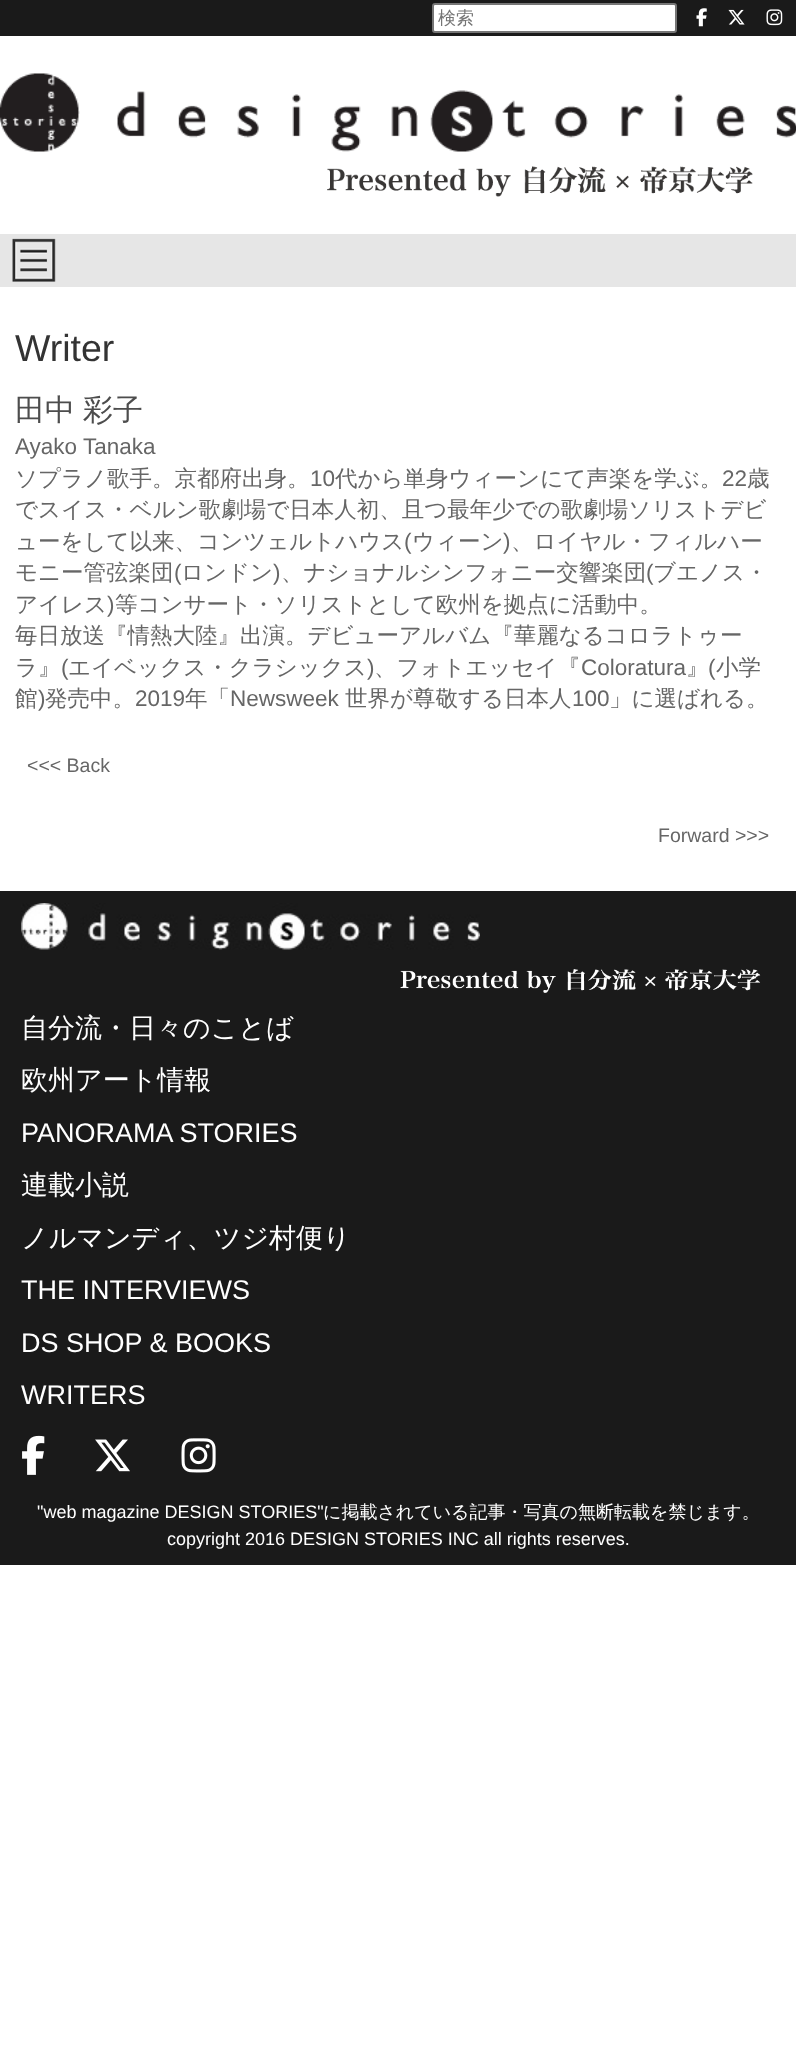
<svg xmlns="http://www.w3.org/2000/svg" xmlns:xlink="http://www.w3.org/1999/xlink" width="796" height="2048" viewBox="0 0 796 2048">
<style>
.cls-1{font:500 18px WenQuanYi Zen Hei;fill:#757575}
.cls-2{font:37.5px Liberation Sans;fill:#333333}
.cls-3{font:500 30px WenQuanYi Zen Hei;fill:#4d4d4d}
.cls-4{font:22.5px Liberation Sans;fill:#666666}
.cls-5{font:500 22.5px WenQuanYi Zen Hei;fill:#666666}
.cls-6{font:19.5px Liberation Sans;fill:#666666}
.cls-7{font:500 27px WenQuanYi Zen Hei;fill:#ffffff}
.cls-8{font:27px Liberation Sans;fill:#ffffff}
.cls-9{font:18px Liberation Sans;fill:#ffffff}
.cls-10{font:500 18px WenQuanYi Zen Hei;fill:#ffffff}
</style>
<rect width="100%" height="100%" fill="#ffffff"/>
<rect fill="#1a1a1a" x="0" y="0" width="796" height="36"/>
<rect fill="#ffffff" stroke="#767676" stroke-width="2" x="433" y="4" width="243" height="28" rx="2"/>
<image xlink:href="image0.png" x="696" y="8" width="11" height="19"/>
<image xlink:href="image1.png" x="728" y="9" width="17" height="16"/>
<image xlink:href="image2.png" x="766" y="9" width="17" height="17"/>
<image xlink:href="image3.png" x="0" y="73" width="796" height="79"/>
<image xlink:href="image4.png" x="327" y="166" width="426" height="31"/>
<rect fill="#e6e6e6" x="0" y="234" width="796" height="53"/>
<image xlink:href="image5.png" x="12" y="238" width="44" height="44"/>
<rect fill="#1a1a1a" x="0" y="891" width="796" height="674"/>
<image xlink:href="image6.png" x="21" y="903" width="459" height="47"/>
<image xlink:href="image7.png" x="400" y="969" width="361" height="24"/>
<image xlink:href="image8.png" x="22" y="1435" width="23" height="40"/>
<image xlink:href="image9.png" x="95" y="1439" width="35" height="33"/>
<image xlink:href="image10.png" x="181" y="1438" width="35" height="35"/>
<text class="cls-1" x="438" y="24">検索</text>
<text class="cls-2" x="15" y="361">Writer</text>
<text class="cls-3" x="15" y="420" word-spacing="-1">田中 彩子</text>
<text class="cls-4" x="15" y="454">Ayako Tanaka</text>
<text class="cls-5" x="15" y="486">ソプラノ歌手。京都府出身。</text>
<text class="cls-4" x="310" y="486">10</text>
<text class="cls-5" x="335" y="486">代から単身ウィーンにて声楽を学ぶ。</text>
<text class="cls-4" x="722" y="486">22</text>
<text class="cls-5" x="747" y="486">歳</text>
<text class="cls-5"><tspan x="15" y="517">でスイス・ベルン歌劇場で日本人初、且つ最年少での歌劇場ソリストデビ</tspan><tspan x="15" y="549">ューをして以来、コンツェルトハウス</tspan></text>
<text class="cls-4" x="404" y="549">(</text>
<text class="cls-5" x="412" y="549">ウィーン</text>
<text class="cls-4" x="503" y="549">)</text>
<text class="cls-5" x="511" y="549">、ロイヤル・フィルハー</text>
<text class="cls-5" x="15" y="580">モニー管弦楽団</text>
<text class="cls-4" x="174" y="580">(</text>
<text class="cls-5" x="181" y="580">ロンドン</text>
<text class="cls-4" x="273" y="580">)</text>
<text class="cls-5" x="281" y="580">、ナショナルシンフォニー交響楽団</text>
<text class="cls-4" x="646" y="580">(</text>
<text class="cls-5" x="653" y="580">ブエノス・</text>
<text class="cls-5" x="15" y="612">アイレス</text>
<text class="cls-4" x="107" y="612">)</text>
<text class="cls-5" x="115" y="612">等コンサート・ソリストとして欧州を拠点に活動中。</text>
<text class="cls-5"><tspan x="15" y="643">毎日放送『情熱大陸』出演。デビューアルバム『華麗なるコロラトゥー</tspan><tspan x="15" y="675">ラ』</tspan></text>
<text class="cls-4" x="61" y="675">(</text>
<text class="cls-5" x="68" y="675">エイベックス・クラシックス</text>
<text class="cls-4" x="367" y="675">)</text>
<text class="cls-5" x="374" y="675">、フォトエッセイ『</text>
<text class="cls-4" x="581" y="675">Coloratura</text>
<text class="cls-5" x="686" y="675">』</text>
<text class="cls-4" x="708" y="675">(</text>
<text class="cls-5" x="716" y="675">小学</text>
<text class="cls-5" x="15" y="706">館</text>
<text class="cls-4" x="38" y="706">)</text>
<text class="cls-5" x="45" y="706">発売中。</text>
<text class="cls-4" x="135" y="706">2019</text>
<text class="cls-5" x="185" y="706">年「</text>
<text class="cls-4" x="230" y="706">Newsweek</text>
<text class="cls-5" x="345" y="706">世界が尊敬する日本人</text>
<text class="cls-4" x="572" y="706">100</text>
<text class="cls-5" x="609" y="706">」に選ばれる。</text>
<text class="cls-6" x="27" y="772">&lt;&lt;&lt; Back</text>
<text class="cls-6" x="658" y="842">Forward &gt;&gt;&gt;</text>
<text class="cls-7"><tspan x="21" y="1037">自分流・日々のことば</tspan><tspan x="21" y="1089">欧州アート情報</tspan></text>
<text class="cls-8" x="21" y="1142">PANORAMA STORIES</text>
<text class="cls-7"><tspan x="21" y="1194">連載小説</tspan><tspan x="21" y="1247">ノルマンディ、ツジ村便り</tspan></text>
<text class="cls-8"><tspan x="21" y="1299">THE INTERVIEWS</tspan><tspan x="21" y="1352">DS SHOP &amp; BOOKS</tspan><tspan x="21" y="1404">WRITERS</tspan></text>
<text class="cls-9" x="37" y="1518">"web magazine DESIGN STORIES"</text>
<text class="cls-10" x="323" y="1518">に掲載されている記事・写真の無断転載を禁じます。</text>
<text class="cls-9" x="167" y="1545">copyright 2016 DESIGN STORIES INC all rights reserves.</text>
</svg>
